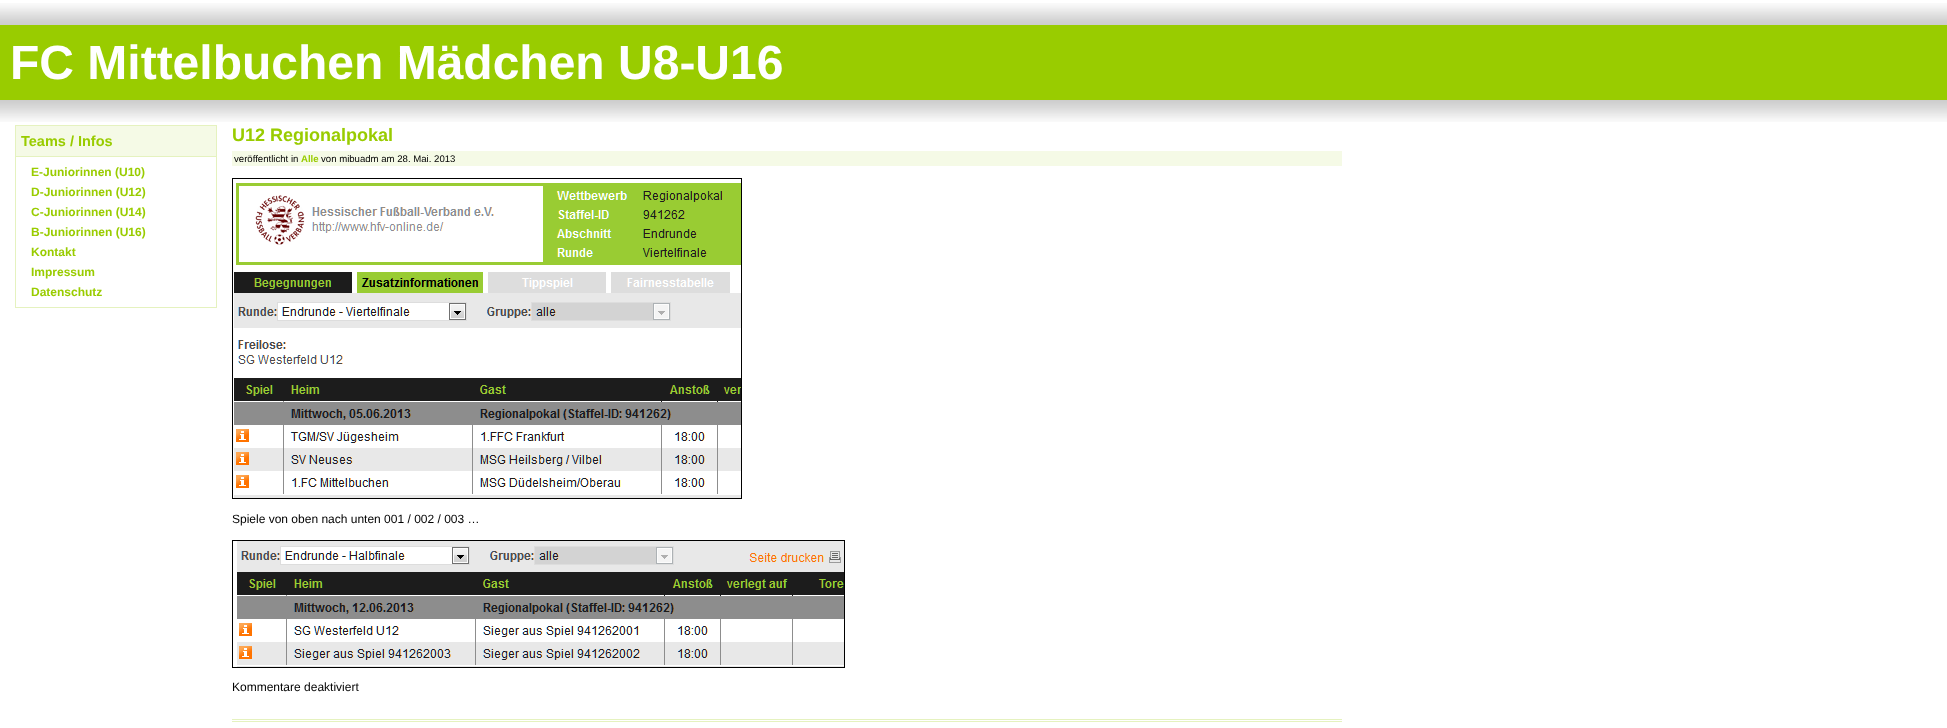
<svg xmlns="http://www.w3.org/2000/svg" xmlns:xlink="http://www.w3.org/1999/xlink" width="1947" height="728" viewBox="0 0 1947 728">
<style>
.cls-1{font:bold 48px Liberation Sans;fill:#ffffff}
.cls-2{font:bold 14.5px Liberation Sans;fill:#99cc00}
.cls-3{font:bold 12px Liberation Sans;fill:#99cc00}
.cls-4{font:bold 18px Liberation Sans;fill:#99cc00}
.cls-5{font:9.6px Liberation Sans;fill:#000000}
.cls-6{font:bold 9.6px Liberation Sans;fill:#99cc00}
.cls-7{font:12px Liberation Sans;fill:#000000}
</style>
<rect width="100%" height="100%" fill="#ffffff"/>
<image xlink:href="image0.png" x="0" y="3" width="1947" height="22"/>
<rect fill="#99cc00" x="0" y="25" width="1947" height="75"/>
<image xlink:href="image1.png" x="0" y="100" width="1947" height="22"/>
<rect fill="#e5f2bf" x="216" y="125" width="1" height="183"/>
<rect fill="#e5f2bf" x="15" y="307" width="202" height="1"/>
<rect fill="#e5f2bf" x="15" y="125" width="1" height="183"/>
<rect fill="#f5fae6" x="16" y="126" width="200" height="30"/>
<rect fill="#e5f2bf" x="16" y="125" width="200" height="1"/>
<rect fill="#e5f2bf" x="16" y="156" width="200" height="1"/>
<rect fill="#f5fae6" x="232" y="151" width="1110" height="15"/>
<image xlink:href="image2.png" x="232" y="178" width="510" height="321"/>
<image xlink:href="image3.png" x="232" y="540" width="613" height="128"/>
<rect fill="#e5f2bf" x="232" y="719" width="1110" height="1"/>
<rect fill="#e5f2bf" x="232" y="721" width="1110" height="1"/>
<text class="cls-1" x="10" y="79">FC Mittelbuchen Mädchen U8-U16</text>
<text class="cls-2" x="21" y="146">Teams / Infos</text>
<text class="cls-3"><tspan x="31" y="176">E-Juniorinnen (U10)</tspan><tspan x="31" y="196">D-Juniorinnen (U12)</tspan><tspan x="31" y="216">C-Juniorinnen (U14)</tspan><tspan x="31" y="236">B-Juniorinnen (U16)</tspan><tspan x="31" y="256">Kontakt</tspan><tspan x="31" y="276">Impressum</tspan><tspan x="31" y="296">Datenschutz</tspan></text>
<text class="cls-4" x="232" y="141">U12 Regionalpokal</text>
<text class="cls-5" x="234" y="162">veröffentlicht in</text>
<text class="cls-6" x="301" y="162">Alle</text>
<text class="cls-5" x="321" y="162">von mibuadm am 28. Mai. 2013</text>
<text class="cls-7" x="232" y="523">Spiele von oben nach unten 001 / 002 / 003 …</text>
<text class="cls-7" x="232" y="691">Kommentare deaktiviert</text>
</svg>
